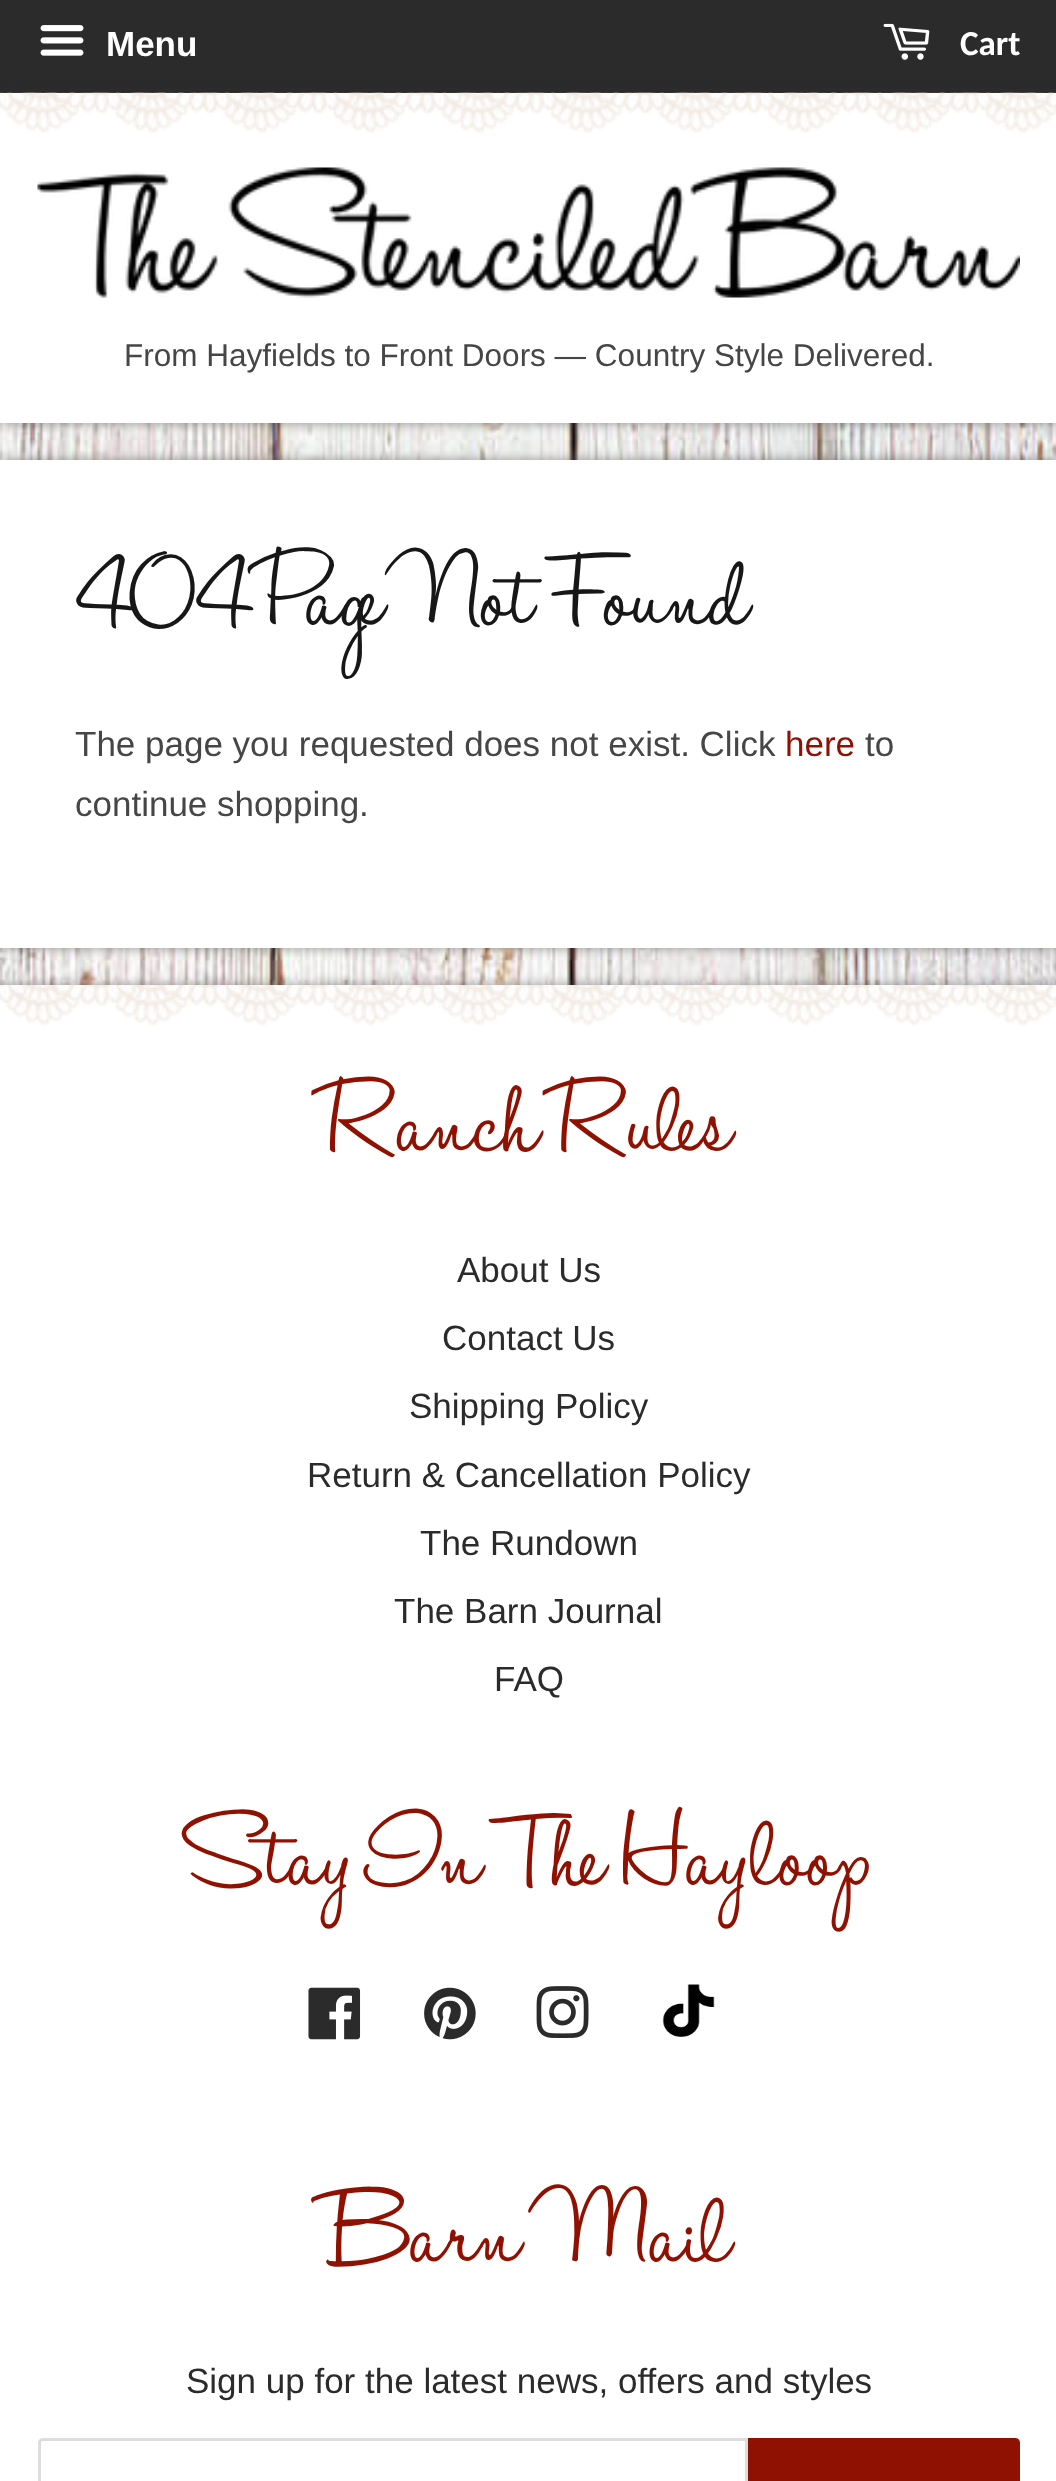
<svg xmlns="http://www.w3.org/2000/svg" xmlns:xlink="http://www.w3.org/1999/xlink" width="1056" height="2481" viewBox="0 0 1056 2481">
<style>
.cls-1{font:bold 35px Liberation Sans;fill:#ffffff}
.cls-2{font:bold 35px Carlito;fill:#ffffff}
.cls-3{font:31.5px Liberation Sans;fill:#474646}
.cls-4{font:120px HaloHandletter;fill:#171717}
.cls-5{font:35px Liberation Sans;fill:#474646}
.cls-6{font:35px Liberation Sans;fill:#8e1101}
.cls-7{font:120px HaloHandletter;fill:#8e1101}
.cls-8{font:35px Liberation Sans;fill:#2b2b2b}
</style>
<rect width="100%" height="100%" fill="#ffffff"/>
<image xlink:href="image0.png" x="0" y="423" width="1056" height="562"/>
<rect fill="#2b2b2b" x="0" y="0" width="1056" height="93"/>
<image xlink:href="image1.png" x="40" y="25" width="44" height="31"/>
<image xlink:href="image2.png" x="883" y="23" width="47" height="37"/>
<rect fill="#323232" fill-opacity="0.5" filter="blur(6px)" x="0" y="93" width="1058" height="330"/>
<rect fill="#ffffff" x="0" y="93" width="1056" height="330"/>
<image xlink:href="image3.png" x="0" y="92" width="1056" height="41"/>
<image xlink:href="image4.png" x="37" y="167" width="983" height="131"/>
<rect fill="#323232" fill-opacity="0.5" filter="blur(6px)" x="0" y="460" width="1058" height="488"/>
<rect fill="#ffffff" x="0" y="460" width="1056" height="488"/>
<rect fill="#323232" fill-opacity="0.5" filter="blur(6px)" x="0" y="985" width="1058" height="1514"/>
<rect fill="#ffffff" x="0" y="985" width="1056" height="1496"/>
<image xlink:href="image5.png" x="0" y="985" width="1056" height="41"/>
<image xlink:href="image6.png" x="308" y="1987" width="53" height="53"/>
<image xlink:href="image7.png" x="424" y="1987" width="52" height="53"/>
<image xlink:href="image8.png" x="536" y="1986" width="53" height="52"/>
<image xlink:href="image9.png" x="662" y="1984" width="53" height="53"/>
<path fill="none" stroke="#dddddd" stroke-width="3" d="M43 2439.5H746.5V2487.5H43C41 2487.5 39.5 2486 39.5 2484V2443C39.5 2441 41 2439.5 43 2439.5Z"/>
<path fill="#8e1101" d="M748 2438H1015C1018 2438 1020 2440 1020 2443V2481C1020 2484 1018 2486 1015 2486H748Z"/>
<text class="cls-1" x="106" y="56">Menu</text>
<text class="cls-2" x="960" y="55">Cart</text>
<text class="cls-3" x="124" y="366">From Hayfields to Front Doors — Country Style Delivered.</text>
<text class="cls-4" x="75" y="627">404 Page Not Found</text>
<text class="cls-5" x="75" y="756">The page you requested does not exist. Click</text>
<text class="cls-6" x="785" y="756">here</text>
<text class="cls-5" x="865" y="756">to</text>
<text class="cls-5" x="75" y="816">continue shopping.</text>
<text class="cls-7" x="325" y="1153">Ranch Rules</text>
<text class="cls-8" x="457" y="1282">About Us</text>
<text class="cls-8" x="442" y="1350">Contact Us</text>
<text class="cls-8" x="409" y="1418">Shipping Policy</text>
<text class="cls-8" x="307" y="1487">Return &amp; Cancellation Policy</text>
<text class="cls-8" x="420" y="1555">The Rundown</text>
<text class="cls-8" x="394" y="1623">The Barn Journal</text>
<text class="cls-8" x="494" y="1691">FAQ</text>
<text class="cls-7" x="185" y="1887">Stay In The Hayloop</text>
<text class="cls-7" x="327" y="2264">Barn Mail</text>
<text class="cls-8" x="186" y="2393">Sign up for the latest news, offers and styles</text>
</svg>
